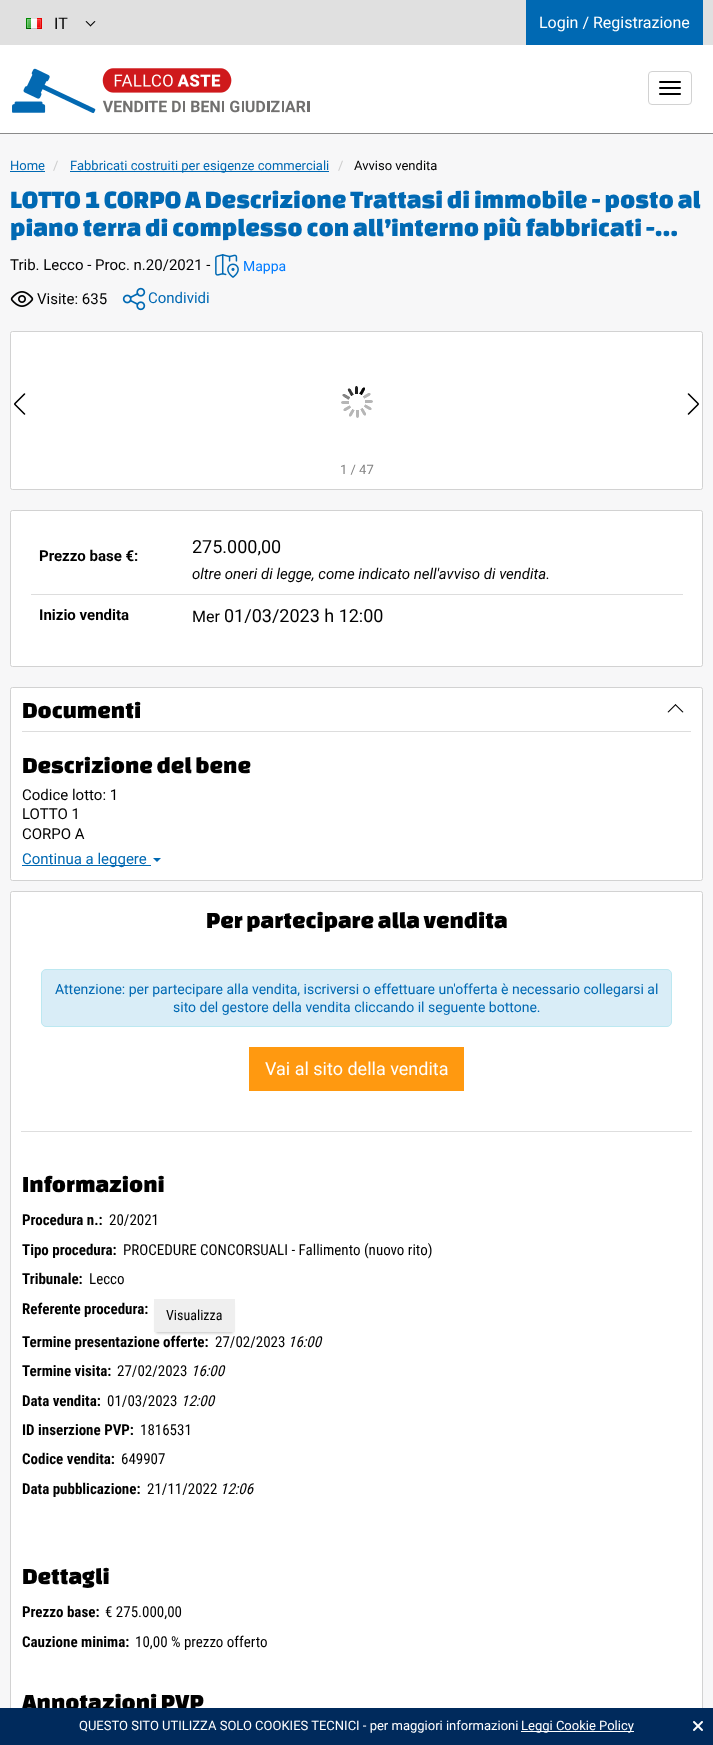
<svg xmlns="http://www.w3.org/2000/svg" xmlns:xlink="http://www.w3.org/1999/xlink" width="713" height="1745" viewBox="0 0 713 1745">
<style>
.cls-1{font:16px Roboto;fill:#000000}
.cls-2{font:16px Roboto;fill:#ffffff}
.cls-3{font:13px Roboto;fill:#0069b3}
.cls-4{font:13px Roboto;fill:#cccccc}
.cls-5{font:13px Roboto;fill:#000000}
.cls-6{font:26px Changa One;fill:#0069b3}
.cls-7{font:15px Roboto;fill:#000000}
.cls-8{font:14px Roboto;fill:#007bff}
.cls-9{font:15px Roboto;fill:#0069b3}
.cls-10{font:13px Roboto;fill:#838383}
.cls-11{font:bold 15px Roboto;fill:#000000}
.cls-12{font:18px Roboto;fill:#000000}
.cls-13{font:italic 15px Roboto;fill:#000000}
.cls-14{font:24px Changa One;fill:#000000}
.cls-15{font:14px Roboto;fill:#0069b3}
.cls-16{font:18px Roboto;fill:#ffffff}
.cls-17{font:bold 15px Roboto Condensed;fill:#000000}
.cls-18{font:15px Roboto Condensed;fill:#000000}
.cls-19{font:14px Roboto Condensed;fill:#000000}
.cls-20{font:italic 15px Roboto Condensed;fill:#000000}
.cls-21{font:13px Roboto;fill:#ffffff}
</style>
<rect width="100%" height="100%" fill="#f7f7f8"/>
<rect fill="#e0e0e0" x="0" y="0" width="713" height="45"/>
<image xlink:href="image0.png" x="26" y="18" width="16" height="11"/>
<path fill="#000000" d="M94.5 21L95.5 21.5L90.5 26.5L90 25.5Z"/>
<path fill="#000000" d="M86.5 21L91 25.5L90.5 26.5L85.5 21.5Z"/>
<rect fill="#0069b3" x="526" y="0" width="177" height="45"/>
<rect fill="#ffffff" x="0" y="45" width="713" height="88"/>
<rect fill="#8a8a8a" x="0" y="133" width="713" height="1"/>
<image xlink:href="image1.png" x="12" y="68" width="298" height="46"/>
<rect fill="none" stroke="#d2d2d2" x="648.5" y="71.5" width="43" height="33" rx="3.5"/>
<rect fill="#000000" x="659" y="81" width="22" height="2" rx="1"/>
<rect fill="#000000" x="659" y="87" width="22" height="2" rx="1"/>
<rect fill="#000000" x="659" y="93" width="22" height="2" rx="1"/>
<rect fill="#0069b3" x="10" y="171" width="35" height="1"/>
<rect fill="#0069b3" x="70" y="171" width="259" height="1"/>
<image xlink:href="image2.png" x="215" y="254" width="24" height="24"/>
<image xlink:href="image3.png" x="10" y="291" width="24" height="16"/>
<image xlink:href="image4.png" x="122" y="287" width="24" height="24"/>
<rect fill="#ffffff" stroke="#d2d2d2" x="10.5" y="331.5" width="692" height="158" rx="2"/>
<image xlink:href="image5.png" x="341" y="386" width="32" height="32"/>
<path fill="none" stroke="#000000" stroke-width="1.6" stroke-linecap="round" stroke-linejoin="round" d="M24.5 394L15 403.5C14.5 404 14.5 404 15 404.5L24.5 414"/>
<path fill="none" stroke="#000000" stroke-width="1.6" stroke-linecap="round" stroke-linejoin="round" d="M688.5 394L698 403.5C698.5 404 698.5 404 698 404.5L688.5 414"/>
<rect fill="#ffffff" stroke="#d2d2d2" x="10.5" y="510.5" width="692" height="156" rx="2"/>
<rect fill="#dddddd" x="31" y="594" width="652" height="1"/>
<rect fill="#ffffff" stroke="#d2d2d2" x="10.5" y="687.5" width="692" height="193" rx="2"/>
<rect fill="#dddddd" x="22" y="731" width="669" height="1"/>
<path fill="#000000" d="M668.5 712.5L667.5 712L675.5 704L676 705Z"/>
<path fill="#000000" d="M682.5 712.5L675 705L675.5 704L683.5 712Z"/>
<rect fill="#0069b3" x="22" y="865" width="129" height="1"/>
<path fill="#0069b3" d="M153 858H161L157 862Z"/>
<rect fill="#ffffff" stroke="#d2d2d2" x="10.5" y="891.5" width="692" height="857" rx="2"/>
<rect fill="#dedede" x="21" y="1131" width="671" height="1"/>
<rect fill="#d9edf7" stroke="#bce8f1" x="41.5" y="969.5" width="630" height="57" rx="4.5"/>
<rect fill="#ff9910" x="249" y="1047" width="215" height="44"/>
<rect fill="#000000" fill-opacity="0.25" filter="blur(1.5px)" x="156" y="1304" width="77" height="29"/>
<rect fill="#efefef" x="154" y="1299" width="81" height="33"/>
<text class="cls-1" x="54" y="29">IT</text>
<text class="cls-2" x="539" y="28">Login / Registrazione</text>
<text class="cls-3" x="10" y="170">Home</text>
<text class="cls-4" x="53" y="170">/</text>
<text class="cls-3" x="70" y="170">Fabbricati costruiti per esigenze commerciali</text>
<text class="cls-4" x="338" y="170">/</text>
<text class="cls-5" x="354" y="170">Avviso vendita</text>
<text class="cls-6"><tspan x="10" y="208">LOTTO 1 CORPO A Descrizione Trattasi di immobile - posto al</tspan><tspan x="10" y="236">piano terra di complesso con all’interno più fabbricati -…</tspan></text>
<text class="cls-7" x="10" y="270">Trib. Lecco - Proc. n.20/2021 -</text>
<text class="cls-8" x="243" y="271">Mappa</text>
<text class="cls-7" x="37" y="304">Visite: 635</text>
<text class="cls-9" x="148" y="303">Condividi</text>
<text class="cls-10" x="340" y="474">1 / 47</text>
<text class="cls-11" x="39" y="561">Prezzo base €:</text>
<text class="cls-12" x="192" y="553">275.000,00</text>
<text class="cls-13" x="192" y="579">oltre oneri di legge, come indicato nell'avviso di vendita.</text>
<text class="cls-11" x="39" y="620">Inizio vendita</text>
<text class="cls-1" x="192" y="622">Mer</text>
<text class="cls-12" x="224" y="622">01/03/2023 h 12:00</text>
<text class="cls-14" x="22" y="718">Documenti</text>
<text class="cls-14" x="22" y="773">Descrizione del bene</text>
<text class="cls-7"><tspan x="22" y="800">Codice lotto: 1</tspan><tspan x="22" y="819">LOTTO 1</tspan><tspan x="22" y="839">CORPO A</tspan></text>
<text class="cls-9" x="22" y="864">Continua a leggere</text>
<text class="cls-14" x="206" y="928">Per partecipare alla vendita</text>
<text class="cls-15" x="55" y="994">Attenzione: per partecipare alla vendita, iscriversi o effettuare un'offerta è necessario collegarsi al</text>
<text class="cls-15" x="173" y="1012">sito del gestore della vendita cliccando il seguente bottone.</text>
<text class="cls-16" x="265" y="1075">Vai al sito della vendita</text>
<text class="cls-14" x="22" y="1192">Informazioni</text>
<text class="cls-17" x="22" y="1225">Procedura n.:</text>
<text class="cls-18" x="109" y="1225">20/2021</text>
<text class="cls-17" x="22" y="1255">Tipo procedura:</text>
<text class="cls-18" x="123" y="1255">PROCEDURE CONCORSUALI - Fallimento (nuovo rito)</text>
<text class="cls-17" x="22" y="1284">Tribunale:</text>
<text class="cls-18" x="89" y="1284">Lecco</text>
<text class="cls-17" x="22" y="1314">Referente procedura:</text>
<text class="cls-19" x="166" y="1320">Visualizza</text>
<text class="cls-17" x="22" y="1347">Termine presentazione offerte:</text>
<text class="cls-18" x="215" y="1347">27/02/2023</text>
<text class="cls-20" x="288" y="1347">16:00</text>
<text class="cls-17" x="22" y="1376">Termine visita:</text>
<text class="cls-18" x="117" y="1376">27/02/2023</text>
<text class="cls-20" x="191" y="1376">16:00</text>
<text class="cls-17" x="22" y="1406">Data vendita:</text>
<text class="cls-18" x="107" y="1406">01/03/2023</text>
<text class="cls-20" x="181" y="1406">12:00</text>
<text class="cls-17" x="22" y="1435">ID inserzione PVP:</text>
<text class="cls-18" x="140" y="1435">1816531</text>
<text class="cls-17" x="22" y="1464">Codice vendita:</text>
<text class="cls-18" x="121" y="1464">649907</text>
<text class="cls-17" x="22" y="1494">Data pubblicazione:</text>
<text class="cls-18" x="147" y="1494">21/11/2022</text>
<text class="cls-20" x="220" y="1494">12:06</text>
<text class="cls-14" x="22" y="1584">Dettagli</text>
<text class="cls-17" x="22" y="1617">Prezzo base:</text>
<text class="cls-18" x="105" y="1617">€ 275.000,00</text>
<text class="cls-17" x="22" y="1647">Cauzione minima:</text>
<text class="cls-18" x="135" y="1647">10,00 % prezzo offerto</text>
<text class="cls-14" x="22" y="1710">Annotazioni PVP</text>
<rect fill="#002a5c" x="0" y="1708" width="713" height="37"/>
<text class="cls-21" x="79" y="1730">QUESTO SITO UTILIZZA SOLO COOKIES TECNICI - per maggiori informazioni</text>
<rect fill="#ffffff" x="521" y="1731" width="113" height="1"/>
<text class="cls-21" x="521" y="1730">Leggi Cookie Policy</text>
<image xlink:href="image6.png" x="693" y="1721" width="10" height="10"/>
</svg>
